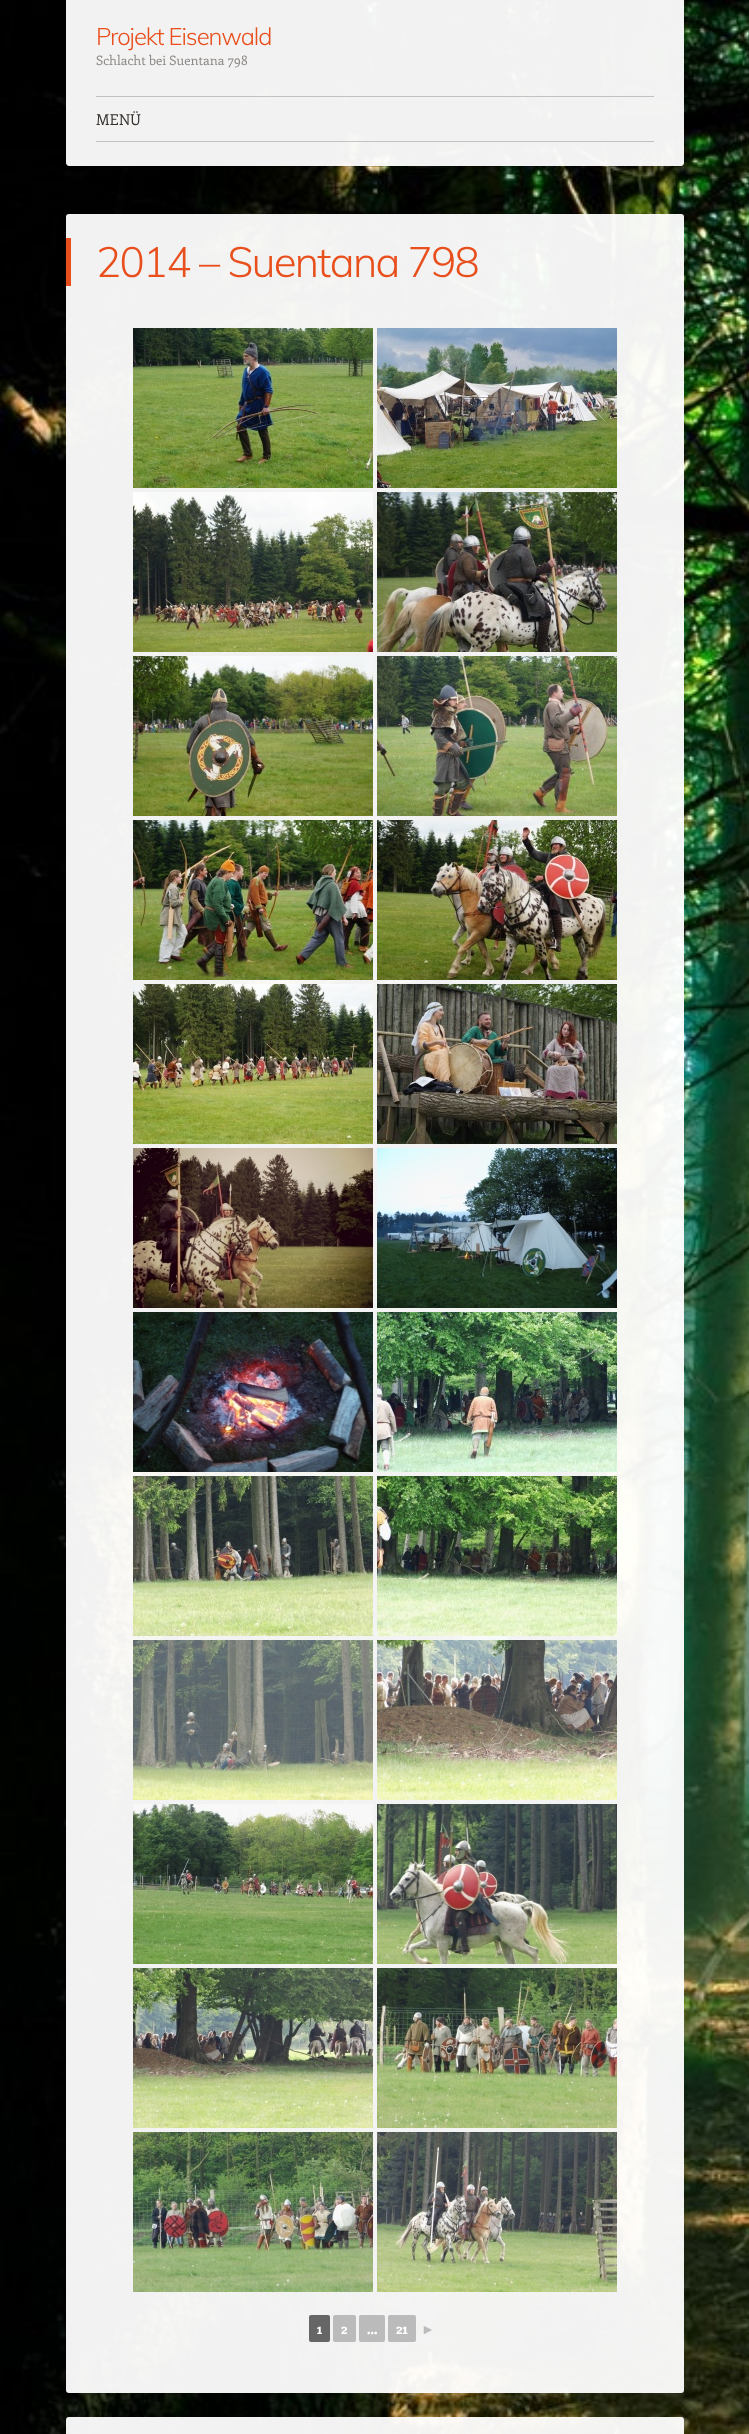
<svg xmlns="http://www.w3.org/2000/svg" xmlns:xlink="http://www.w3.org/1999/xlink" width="749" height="2434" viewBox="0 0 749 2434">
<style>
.cls-1{font:300 24px Muli;letter-spacing:-1.1px;fill:#e94f1d}
.cls-2{font:13px Enriqueta;fill:#8c8885}
.cls-3{font:15px Enriqueta;fill:#36312d}
.cls-4{font:300 42px Muli;letter-spacing:-1.7px;fill:#e94f1d}
.cls-5{font:bold 14px Enriqueta;fill:#ffffff}
.cls-6{font:bold 14px Liberation Serif;fill:#bbbbbb}
</style>
<rect width="100%" height="100%" fill="#ffffff"/>
<image xlink:href="image0.png" x="0" y="0" width="749" height="2434"/>
<path fill="#ffffff" fill-opacity="0.95" d="M66 0H684V163C684 164.5 682.5 166 681 166H69C67.5 166 66 164.5 66 163Z"/>
<rect fill="#000000" fill-opacity="0.2" x="96" y="96" width="558" height="1"/>
<rect fill="#000000" fill-opacity="0.2" x="96" y="141" width="558" height="1"/>
<rect fill="#ffffff" fill-opacity="0.95" x="66" y="214" width="618" height="2179" rx="3"/>
<rect fill="#e94f1d" x="66" y="238" width="5" height="48"/>
<image xlink:href="image1.png" x="133" y="328" width="240" height="160"/>
<image xlink:href="image2.png" x="377" y="328" width="240" height="160"/>
<image xlink:href="image3.png" x="133" y="492" width="240" height="160"/>
<image xlink:href="image4.png" x="377" y="492" width="240" height="160"/>
<image xlink:href="image5.png" x="133" y="656" width="240" height="160"/>
<image xlink:href="image6.png" x="377" y="656" width="240" height="160"/>
<image xlink:href="image7.png" x="133" y="820" width="240" height="160"/>
<image xlink:href="image8.png" x="377" y="820" width="240" height="160"/>
<image xlink:href="image9.png" x="133" y="984" width="240" height="160"/>
<image xlink:href="image10.png" x="377" y="984" width="240" height="160"/>
<image xlink:href="image11.png" x="133" y="1148" width="240" height="160"/>
<image xlink:href="image12.png" x="377" y="1148" width="240" height="160"/>
<image xlink:href="image13.png" x="133" y="1312" width="240" height="160"/>
<image xlink:href="image14.png" x="377" y="1312" width="240" height="160"/>
<image xlink:href="image15.png" x="133" y="1476" width="240" height="160"/>
<image xlink:href="image16.png" x="377" y="1476" width="240" height="160"/>
<image xlink:href="image17.png" x="133" y="1640" width="240" height="160"/>
<image xlink:href="image18.png" x="377" y="1640" width="240" height="160"/>
<image xlink:href="image19.png" x="133" y="1804" width="240" height="160"/>
<image xlink:href="image20.png" x="377" y="1804" width="240" height="160"/>
<image xlink:href="image21.png" x="133" y="1968" width="240" height="160"/>
<image xlink:href="image22.png" x="377" y="1968" width="240" height="160"/>
<image xlink:href="image23.png" x="133" y="2132" width="240" height="160"/>
<image xlink:href="image24.png" x="377" y="2132" width="240" height="160"/>
<rect fill="#666666" x="309" y="2315" width="21" height="27" rx="2"/>
<rect fill="#bbbbbb" x="333" y="2315" width="23" height="27" rx="2"/>
<rect fill="#bbbbbb" x="359" y="2315" width="26" height="27" rx="2"/>
<rect fill="#bbbbbb" x="388" y="2315" width="28" height="27" rx="2"/>
<rect fill="#ffffff" fill-opacity="0.95" x="66" y="2417" width="618" height="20" rx="3"/>
<text class="cls-1" x="96" y="45">Projekt Eisenwald</text>
<text class="cls-2" x="96" y="65">Schlacht bei Suentana 798</text>
<text class="cls-3" x="96" y="125">MENÜ</text>
<text class="cls-4" x="96" y="277">2014 – Suentana 798</text>
<text class="cls-5" x="317" y="2334">1</text>
<text class="cls-5" x="341" y="2334">2</text>
<text class="cls-5" x="367" y="2334">...</text>
<text class="cls-5" x="396" y="2334">21</text>
<text class="cls-6" x="421" y="2334">►</text>
</svg>
